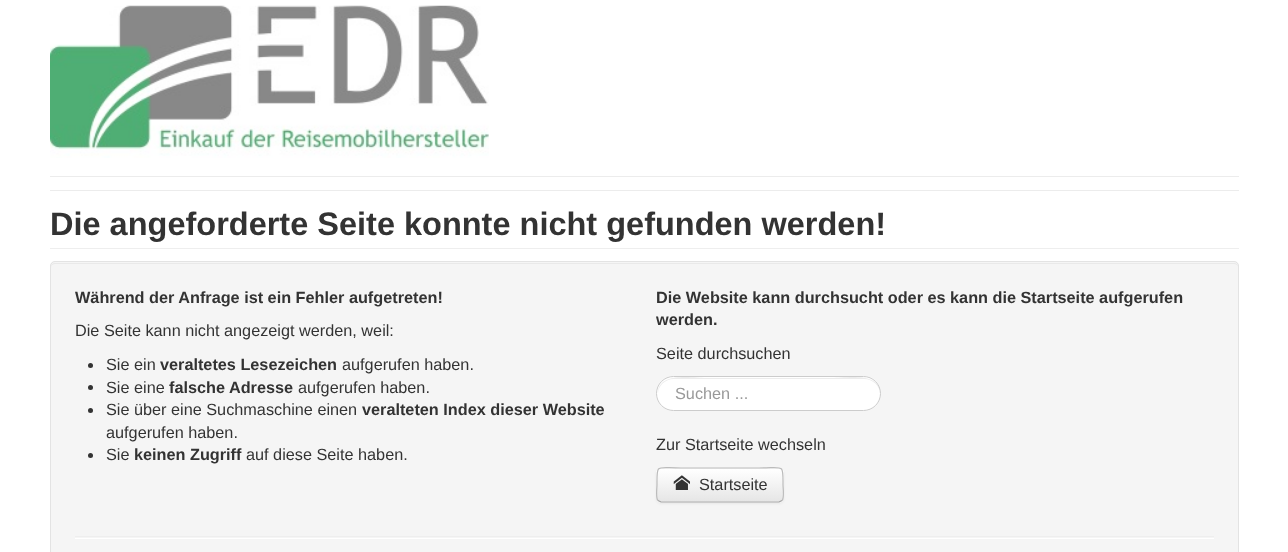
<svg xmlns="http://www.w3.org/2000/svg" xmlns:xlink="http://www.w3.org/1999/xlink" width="1288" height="552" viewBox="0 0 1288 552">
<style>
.cls-1{font:bold 32.5px Liberation Sans;fill:#333333}
.cls-2{font:bold 16.25px Liberation Sans;fill:#333333}
.cls-3{font:16.25px Liberation Sans;fill:#333333}
.cls-4{font:16.25px Liberation Sans;fill:#999999}
</style>
<defs>
<clipPath id="clip1"><rect x="656" y="468" width="128" height="35" rx="5"/></clipPath>
<linearGradient id="g1" gradientUnits="userSpaceOnUse" x1="720" y1="469" x2="720" y2="501"><stop offset="0" stop-color="#ffffff"/><stop offset="1" stop-color="#e6e6e6"/></linearGradient>
</defs>
<rect width="100%" height="100%" fill="#ffffff"/>
<image xlink:href="image0.png" x="50" y="5" width="439" height="153"/>
<rect fill="#ececec" x="50" y="176" width="1189" height="1"/>
<rect fill="#ececec" x="50" y="190" width="1189" height="1"/>
<rect fill="#eeeeee" x="50" y="248" width="1189" height="1"/>
<rect fill="#f5f5f5" x="50" y="261" width="1189" height="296" rx="5"/>
<path fill="#e9e9e9" d="M55 264H1234C1236 264 1238 265 1238 268C1238 265 1237 263 1234 263H55C52 263 51 265 51 268C51 265 53 264 55 264Z"/>
<rect fill="none" stroke="#e3e3e3" x="50.5" y="261.5" width="1188" height="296" rx="4.5"/>
<circle fill="#333333" cx="90.5" cy="365.5" r="2.5"/>
<circle fill="#333333" cx="90.5" cy="387.5" r="2.5"/>
<circle fill="#333333" cx="90.5" cy="410.5" r="2.5"/>
<circle fill="#333333" cx="90.5" cy="455.5" r="2.5"/>
<rect fill="#ffffff" x="656" y="376" width="225" height="35" rx="17.5"/>
<path fill="#ececec" d="M674 379H864C873 379 880 386 880 394C881 371 844 378 832 378H706C694 378 657 371 658 394C658 386 665 379 674 379Z"/>
<rect fill="none" stroke="#cccccc" x="656.5" y="376.5" width="224" height="34" rx="17"/>
<rect fill="#000000" fill-opacity="0.05" filter="blur(1px)" x="656" y="469" width="128" height="35" rx="5"/>
<rect fill="#f5f5f5" x="656" y="468" width="128" height="35" rx="5"/>
<g clip-path="url(#clip1)">
<rect fill="url(#g1)" x="656" y="469" width="128" height="32"/>
</g>
<path fill="#ffffff" fill-opacity="0.2" d="M661 470H779C784 470 782 480 782 482V500C784 497 783 488 783 485C783 464 784 469 760 469H682C679 469 658 464 658 474C658 472 659 470 661 470Z"/>
<path fill="none" stroke="#a2a2a2" stroke-width="1.2" d="M782 500.5L779 502H661L658 500.5"/>
<path fill="none" stroke="#bbbbbb" stroke-width="1.2" d="M658 500.5C655.5 498 657 488 657 485C657 463 655.5 468 681 468H759C784.5 468 783 463 783 485C783 488 784.5 498 782 500.5"/>
<image xlink:href="image1.png" x="673" y="475" width="17" height="15"/>
<rect fill="#eeeeee" x="75" y="536" width="1139" height="1"/>
<rect fill="#ffffff" x="75" y="538" width="1139" height="1"/>
<text class="cls-1" x="50" y="235">Die angeforderte Seite konnte nicht gefunden werden!</text>
<text class="cls-2" x="75" y="303">Während der Anfrage ist ein Fehler aufgetreten!</text>
<text class="cls-3" x="75" y="336">Die Seite kann nicht angezeigt werden, weil:</text>
<text class="cls-3" x="106" y="370">Sie ein</text>
<text class="cls-2" x="160" y="370">veraltetes Lesezeichen</text>
<text class="cls-3" x="342" y="370">aufgerufen haben.</text>
<text class="cls-3" x="106" y="393">Sie eine</text>
<text class="cls-2" x="169" y="393">falsche Adresse</text>
<text class="cls-3" x="298" y="393">aufgerufen haben.</text>
<text class="cls-3" x="106" y="415">Sie über eine Suchmaschine einen</text>
<text class="cls-2" x="362" y="415">veralteten Index dieser Website</text>
<text class="cls-3"><tspan x="106" y="438">aufgerufen haben.</tspan><tspan x="106" y="460">Sie</tspan></text>
<text class="cls-2" x="134" y="460">keinen Zugriff</text>
<text class="cls-3" x="246" y="460">auf diese Seite haben.</text>
<text class="cls-2"><tspan x="656" y="303">Die Website kann durchsucht oder es kann die Startseite aufgerufen</tspan><tspan x="656" y="325">werden.</tspan></text>
<text class="cls-3" x="656" y="359">Seite durchsuchen</text>
<text class="cls-4" x="675" y="399">Suchen ...</text>
<text class="cls-3" x="656" y="450">Zur Startseite wechseln</text>
<text class="cls-3" x="699" y="490">Startseite</text>
</svg>
